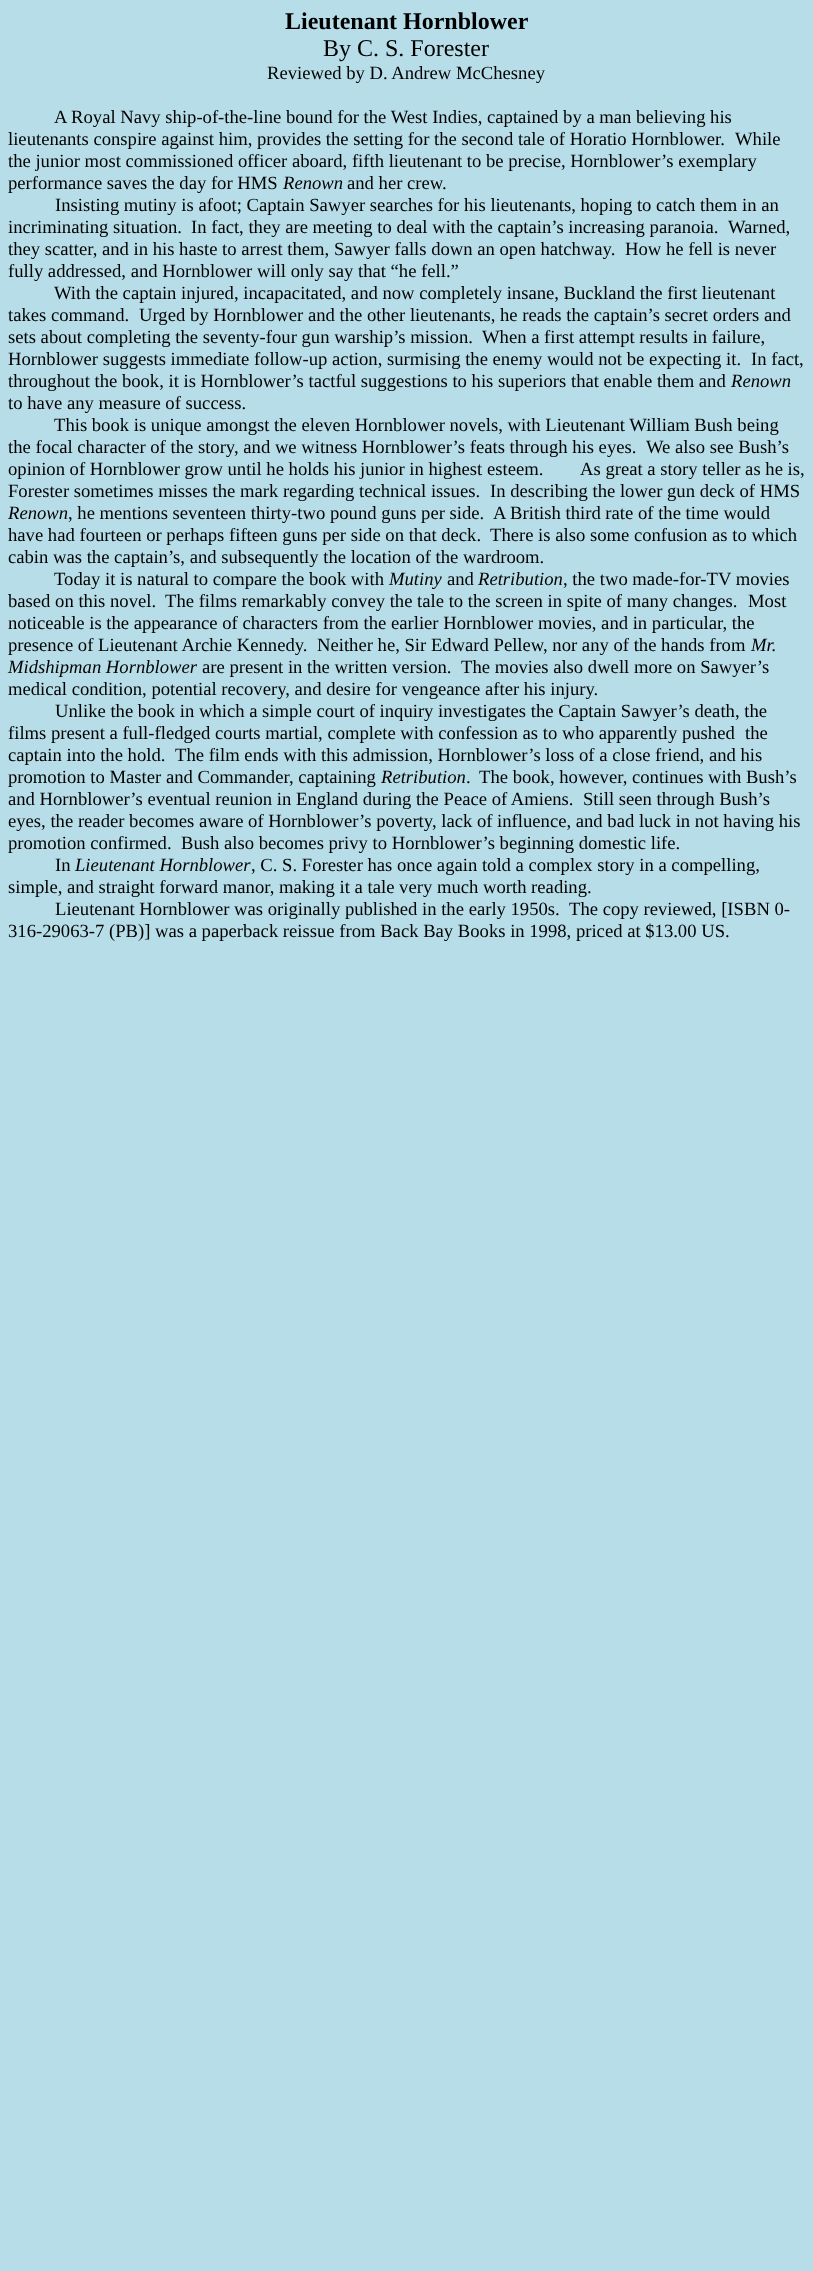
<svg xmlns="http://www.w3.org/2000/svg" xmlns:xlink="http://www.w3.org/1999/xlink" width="813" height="2271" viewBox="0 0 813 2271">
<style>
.cls-1{font:bold 24px Liberation Serif;fill:#000000}
.cls-2{font:24px Liberation Serif;fill:#000000}
.cls-3{font:18.65px Liberation Serif;fill:#000000}
.cls-4{font:italic 18.65px Liberation Serif;fill:#000000}
</style>
<rect width="100%" height="100%" fill="#b6dde8"/>
<text class="cls-1" x="285" y="29">Lieutenant Hornblower</text>
<text class="cls-2" x="323" y="56">By C. S. Forester</text>
<text class="cls-3" x="267" y="79">Reviewed by D. Andrew McChesney</text>
<text class="cls-3" x="54" y="123">A Royal Navy ship-of-the-line bound for the West Indies, captained by a man believing his</text>
<text class="cls-3" x="8" y="145">lieutenants conspire against him, provides the setting for the second tale of Horatio Hornblower.</text>
<text class="cls-3" x="735" y="145">While</text>
<text class="cls-3"><tspan x="8" y="167">the junior most commissioned officer aboard, fifth lieutenant to be precise, Hornblower’s exemplary</tspan><tspan x="8" y="189">performance saves the day for HMS</tspan></text>
<text class="cls-4" x="283" y="189">Renown</text>
<text class="cls-3" x="347" y="189">and her crew.</text>
<text class="cls-3" x="55" y="211">Insisting mutiny is afoot; Captain Sawyer searches for his lieutenants, hoping to catch them in an</text>
<text class="cls-3" x="8" y="233">incriminating situation.</text>
<text class="cls-3" x="191" y="233">In fact, they are meeting to deal with the captain’s increasing paranoia.</text>
<text class="cls-3" x="728" y="233">Warned,</text>
<text class="cls-3" x="8" y="255">they scatter, and in his haste to arrest them, Sawyer falls down an open hatchway.</text>
<text class="cls-3" x="625" y="255">How he fell is never</text>
<text class="cls-3" x="8" y="277">fully addressed, and Hornblower will only say that “he fell.”</text>
<text class="cls-3" x="54" y="299">With the captain injured, incapacitated, and now completely insane, Buckland the first lieutenant</text>
<text class="cls-3" x="8" y="321">takes command.</text>
<text class="cls-3" x="139" y="321">Urged by Hornblower and the other lieutenants, he reads the captain’s secret orders and</text>
<text class="cls-3" x="8" y="343">sets about completing the seventy-four gun warship’s mission.</text>
<text class="cls-3" x="482" y="343">When a first attempt results in failure,</text>
<text class="cls-3" x="8" y="365">Hornblower suggests immediate follow-up action, surmising the enemy would not be expecting it.</text>
<text class="cls-3" x="751" y="365">In fact,</text>
<text class="cls-3" x="8" y="387">throughout the book, it is Hornblower’s tactful suggestions to his superiors that enable them and</text>
<text class="cls-4" x="731" y="387">Renown</text>
<text class="cls-3" x="8" y="409">to have any measure of success.</text>
<text class="cls-3" x="54" y="431">This book is unique amongst the eleven Hornblower novels, with Lieutenant William Bush being</text>
<text class="cls-3" x="8" y="453">the focal character of the story, and we witness Hornblower’s feats through his eyes.</text>
<text class="cls-3" x="646" y="453">We also see Bush’s</text>
<text class="cls-3" x="8" y="475">opinion of Hornblower grow until he holds his junior in highest esteem.</text>
<text class="cls-3" x="580" y="475">As great a story teller as he is,</text>
<text class="cls-3" x="8" y="497">Forester sometimes misses the mark regarding technical issues.</text>
<text class="cls-3" x="490" y="497">In describing the lower gun deck of HMS</text>
<text class="cls-4" x="8" y="519">Renown</text>
<text class="cls-3" x="68" y="519">, he mentions seventeen thirty-two pound guns per side.</text>
<text class="cls-3" x="493" y="519">A British third rate of the time would</text>
<text class="cls-3" x="8" y="541">have had fourteen or perhaps fifteen guns per side on that deck.</text>
<text class="cls-3" x="490" y="541">There is also some confusion as to which</text>
<text class="cls-3" x="8" y="563">cabin was the captain’s, and subsequently the location of the wardroom.</text>
<text class="cls-3" x="54" y="585">Today it is natural to compare the book with</text>
<text class="cls-4" x="389" y="585">Mutiny</text>
<text class="cls-3" x="447" y="585">and</text>
<text class="cls-4" x="478" y="585">Retribution</text>
<text class="cls-3" x="563" y="585">, the two made-for-TV movies</text>
<text class="cls-3" x="8" y="607">based on this novel.</text>
<text class="cls-3" x="165" y="607">The films remarkably convey the tale to the screen in spite of many changes.</text>
<text class="cls-3" x="748" y="607">Most</text>
<text class="cls-3"><tspan x="8" y="629">noticeable is the appearance of characters from the earlier Hornblower movies, and in particular, the</tspan><tspan x="8" y="651">presence of Lieutenant Archie Kennedy.</tspan></text>
<text class="cls-3" x="317" y="651">Neither he, Sir Edward Pellew, nor any of the hands from</text>
<text class="cls-4" x="751" y="651">Mr.</text>
<text class="cls-4" x="8" y="673">Midshipman Hornblower</text>
<text class="cls-3" x="202" y="673">are present in the written version.</text>
<text class="cls-3" x="461" y="673">The movies also dwell more on Sawyer’s</text>
<text class="cls-3" x="8" y="695">medical condition, potential recovery, and desire for vengeance after his injury.</text>
<text class="cls-3" x="55" y="717">Unlike the book in which a simple court of inquiry investigates the Captain Sawyer’s death, the</text>
<text class="cls-3" x="8" y="739">films present a full-fledged courts martial, complete with confession as to who apparently pushed</text>
<text class="cls-3" x="745" y="739">the</text>
<text class="cls-3" x="8" y="761">captain into the hold.</text>
<text class="cls-3" x="175" y="761">The film ends with this admission, Hornblower’s loss of a close friend, and his</text>
<text class="cls-3" x="8" y="783">promotion to Master and Commander, captaining</text>
<text class="cls-4" x="381" y="783">Retribution</text>
<text class="cls-3" x="466" y="783">.</text>
<text class="cls-3" x="479" y="783">The book, however, continues with Bush’s</text>
<text class="cls-3" x="8" y="805">and Hornblower’s eventual reunion in England during the Peace of Amiens.</text>
<text class="cls-3" x="583" y="805">Still seen through Bush’s</text>
<text class="cls-3"><tspan x="8" y="827">eyes, the reader becomes aware of Hornblower’s poverty, lack of influence, and bad luck in not having his</tspan><tspan x="8" y="849">promotion confirmed.</tspan></text>
<text class="cls-3" x="181" y="849">Bush also becomes privy to Hornblower’s beginning domestic life.</text>
<text class="cls-3" x="55" y="871">In</text>
<text class="cls-4" x="75" y="871">Lieutenant Hornblower</text>
<text class="cls-3" x="251" y="871">, C. S. Forester has once again told a complex story in a compelling,</text>
<text class="cls-3" x="8" y="893">simple, and straight forward manor, making it a tale very much worth reading.</text>
<text class="cls-3" x="55" y="915">Lieutenant Hornblower was originally published in the early 1950s.</text>
<text class="cls-3" x="569" y="915">The copy reviewed, [ISBN 0-</text>
<text class="cls-3" x="8" y="937">316-29063-7 (PB)] was a paperback reissue from Back Bay Books in 1998, priced at $13.00 US.</text>
</svg>
